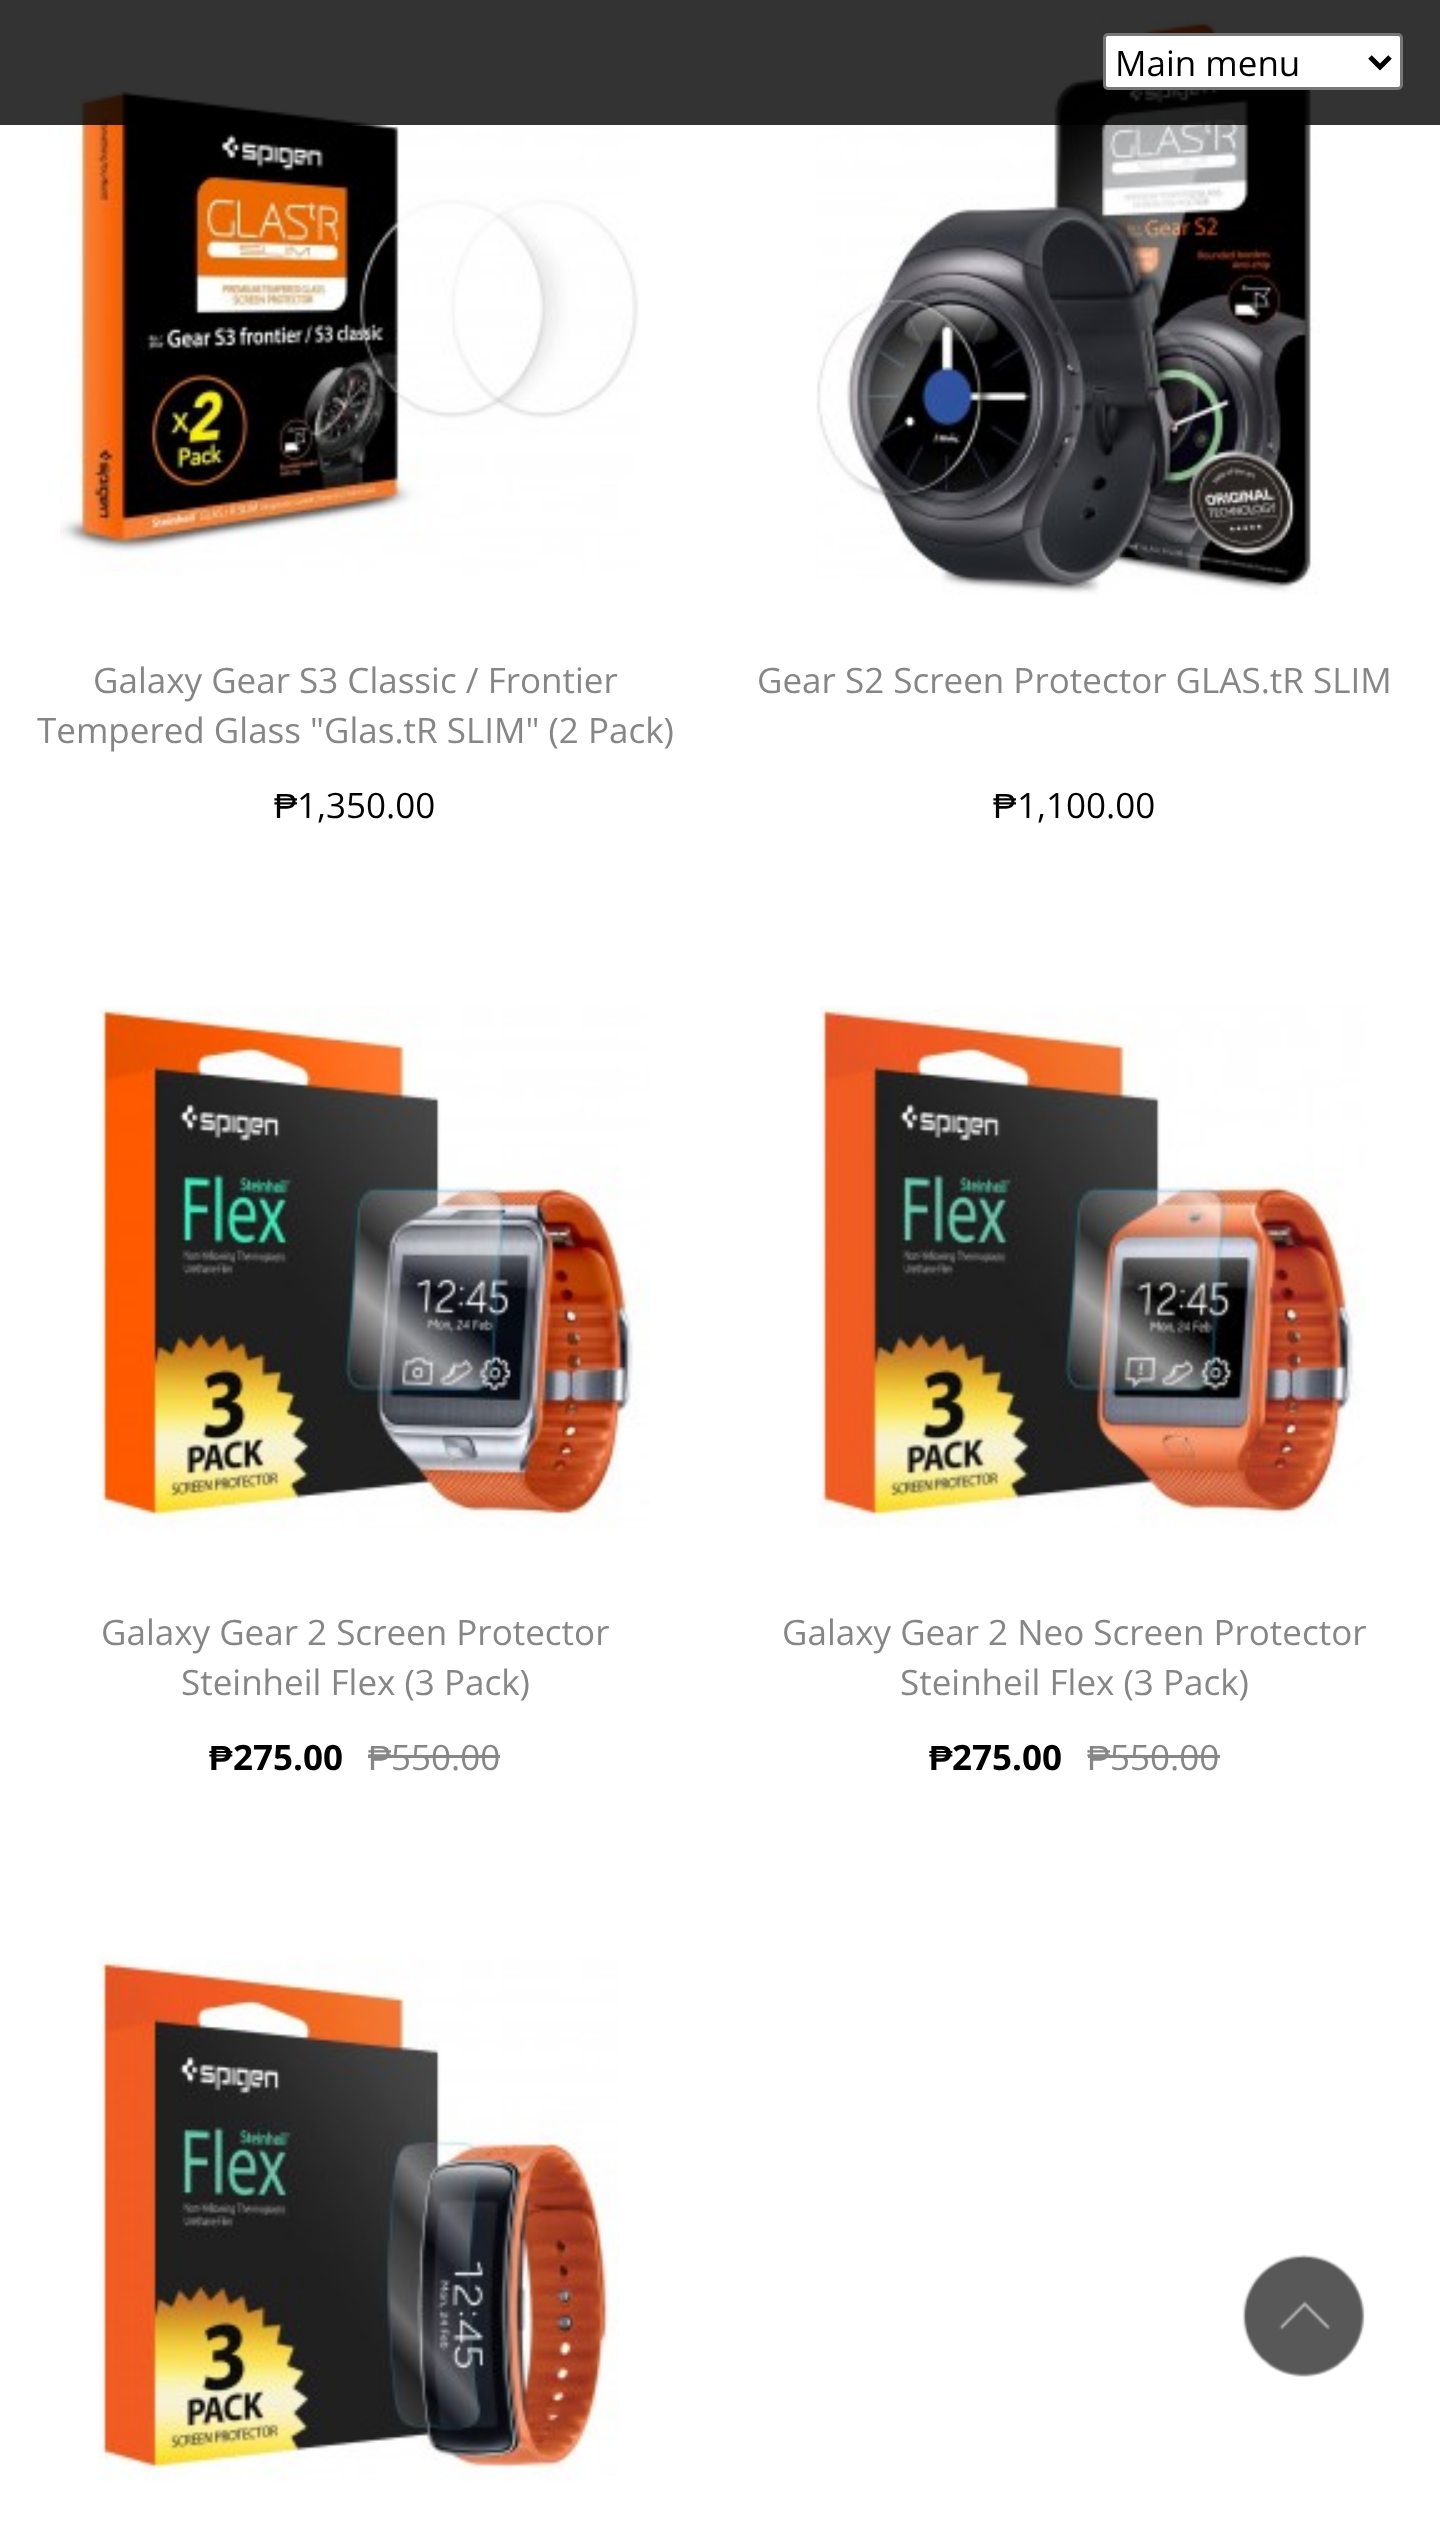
<svg xmlns="http://www.w3.org/2000/svg" xmlns:xlink="http://www.w3.org/1999/xlink" width="1440" height="2527" viewBox="0 0 1440 2527">
<style>
.cls-1{font:35px Open Sans;fill:#000000}
.cls-2{font:35px Open Sans;fill:#868686}
.cls-3{font:35px Liberation Sans;fill:#000000}
.cls-4{font:bold 35px Liberation Sans;fill:#000000}
.cls-5{font:bold 35px Open Sans;fill:#000000}
.cls-6{font:35px Liberation Sans;fill:#868686}
</style>
<rect width="100%" height="100%" fill="#ffffff"/>
<image xlink:href="image0.png" x="60" y="81" width="579" height="494"/>
<image xlink:href="image1.png" x="816" y="15" width="504" height="580"/>
<rect fill="#000000" fill-opacity="0.8" x="0" y="0" width="1440" height="125"/>
<rect fill="#ffffff" stroke="#767676" stroke-width="3" x="1104.5" y="34.5" width="297" height="54" rx="3.5"/>
<path fill="none" stroke="#000000" stroke-width="5" d="M1370 57L1380 67L1390 57"/>
<image xlink:href="image2.png" x="98" y="1006" width="552" height="523"/>
<image xlink:href="image3.png" x="818" y="1005" width="548" height="523"/>
<image xlink:href="image4.png" x="98" y="1957" width="522" height="524"/>
<image xlink:href="image5.png" x="1242" y="2254" width="123" height="123"/>
<text class="cls-1" x="1115" y="76">Main menu</text>
<text class="cls-2" x="93" y="693">Galaxy Gear S3 Classic / Frontier</text>
<text class="cls-2" x="37" y="743">Tempered Glass "Glas.tR SLIM" (2 Pack)</text>
<text class="cls-3" x="274" y="818">₱</text>
<text class="cls-1" x="297" y="818">1,350.00</text>
<text class="cls-2" x="757" y="693">Gear S2 Screen Protector GLAS.tR SLIM</text>
<text class="cls-3" x="993" y="818">₱</text>
<text class="cls-1" x="1017" y="818">1,100.00</text>
<text class="cls-2" x="101" y="1645">Galaxy Gear 2 Screen Protector</text>
<text class="cls-2" x="181" y="1695">Steinheil Flex (3 Pack)</text>
<text class="cls-4" x="209" y="1770">₱</text>
<text class="cls-5" x="233" y="1770">275.00</text>
<text class="cls-6" x="368" y="1770">₱</text>
<text class="cls-2" x="391" y="1770">550.00</text>
<rect fill="#888888" x="368" y="1755" width="132" height="3"/>
<text class="cls-2" x="782" y="1645">Galaxy Gear 2 Neo Screen Protector</text>
<text class="cls-2" x="900" y="1695">Steinheil Flex (3 Pack)</text>
<text class="cls-4" x="929" y="1770">₱</text>
<text class="cls-5" x="952" y="1770">275.00</text>
<text class="cls-6" x="1087" y="1770">₱</text>
<text class="cls-2" x="1110" y="1770">550.00</text>
<rect fill="#888888" x="1088" y="1755" width="132" height="3"/>
</svg>
